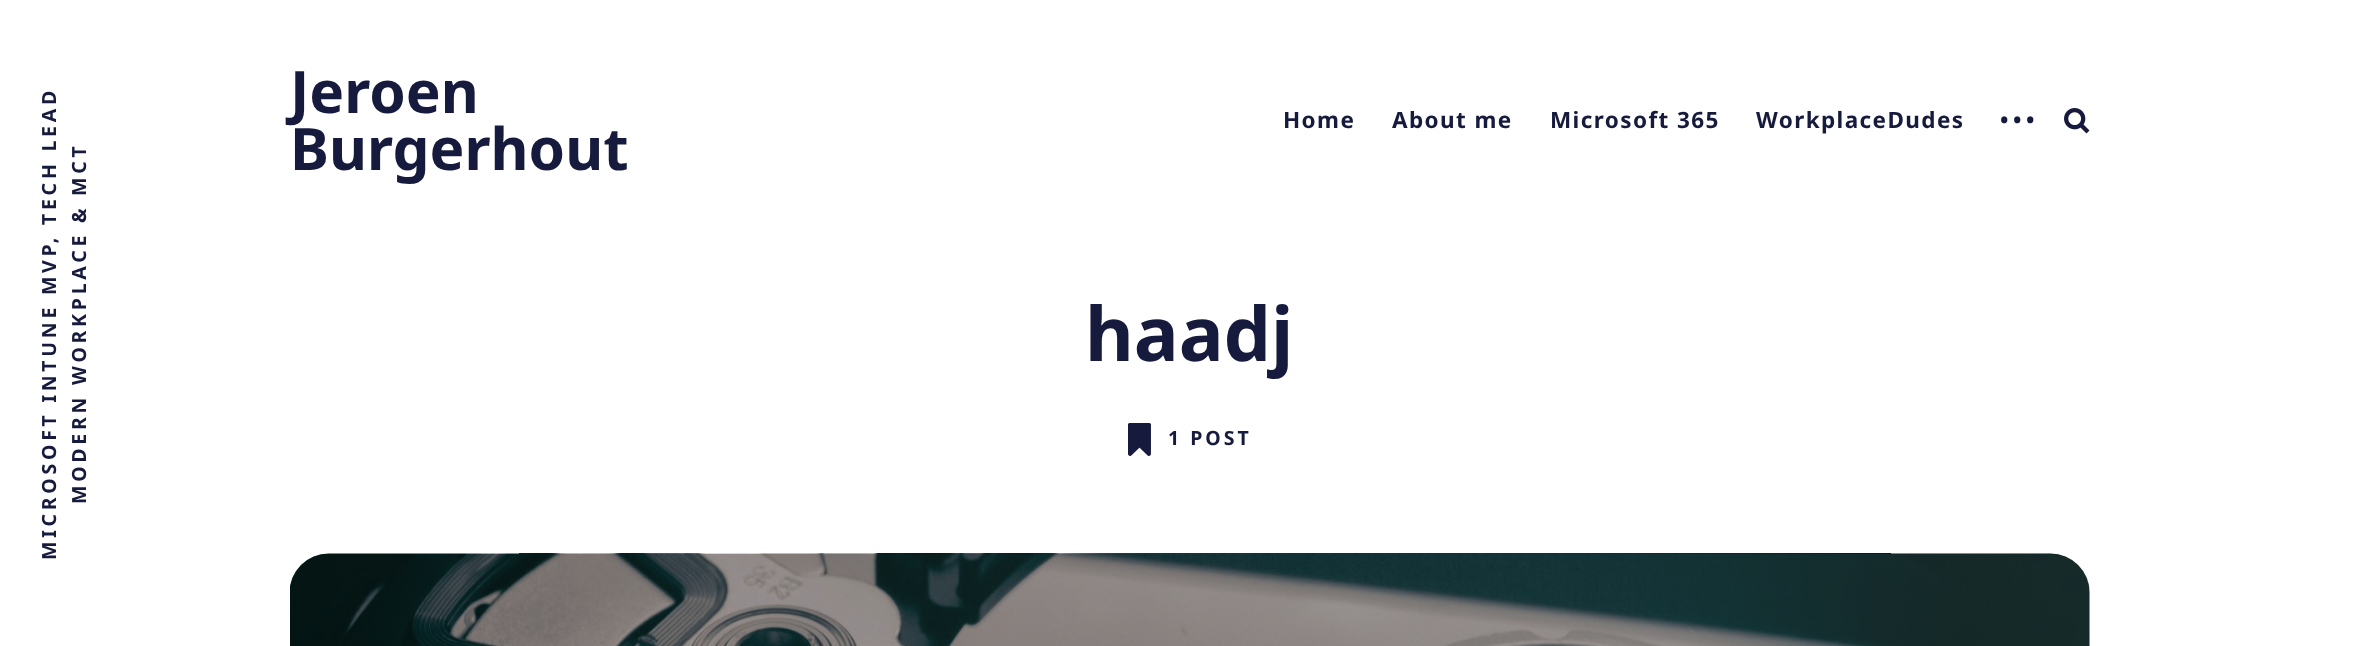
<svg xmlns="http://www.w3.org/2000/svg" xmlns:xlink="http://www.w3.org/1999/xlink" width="2378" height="646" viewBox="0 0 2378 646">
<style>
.cls-1{font:bold 19.5px Noto Sans;letter-spacing:3.75px;fill:#161b3d}
.cls-2{font:bold 58.5px Noto Sans;fill:#161b3d}
.cls-3{font:bold 22.5px Noto Sans;letter-spacing:1.4px;fill:#161b3d}
.cls-4{font:bold 22.5px Noto Sans;letter-spacing:4.5px;fill:#161b3d}
.cls-5{font:bold 75px Noto Sans;fill:#161b3d}
.cls-6{font:bold 19.5px Noto Sans;letter-spacing:3px;fill:#161b3d}
</style>
<defs>
<linearGradient id="g1" gradientUnits="userSpaceOnUse" x1="1911" y1="307" x2="468" y2="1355"><stop offset="0" stop-color="#394245" stop-opacity="0.4"/><stop offset="1" stop-color="#000000" stop-opacity="0.4"/></linearGradient>
</defs>
<rect width="100%" height="100%" fill="#ffffff"/>
<image xlink:href="image0.png" x="2064" y="108" width="26" height="26"/>
<image xlink:href="image1.png" x="1128" y="423" width="23" height="33"/>
<image xlink:href="image2.png" x="290" y="553" width="1800" height="93"/>
<rect fill="url(#g1)" x="290" y="554" width="1800" height="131" rx="39"/>
<text class="cls-1" x="56" y="560" transform="rotate(-90 56 560)">MICROSOFT INTUNE MVP, TECH LEAD</text>
<text class="cls-1" x="86" y="504" transform="rotate(-90 86 504)">MODERN WORKPLACE &amp; MCT</text>
<text class="cls-2"><tspan x="290" y="113">Jeroen</tspan><tspan x="290" y="170">Burgerhout</tspan></text>
<text class="cls-3" x="1283" y="128">Home</text>
<text class="cls-3" x="1392" y="128">About me</text>
<text class="cls-3" x="1550" y="128">Microsoft 365</text>
<text class="cls-3" x="1756" y="128">WorkplaceDudes</text>
<text class="cls-4" x="2000" y="128">•••</text>
<text class="cls-5" x="1085" y="361">haadj</text>
<text class="cls-6" x="1168" y="445">1 POST</text>
</svg>
